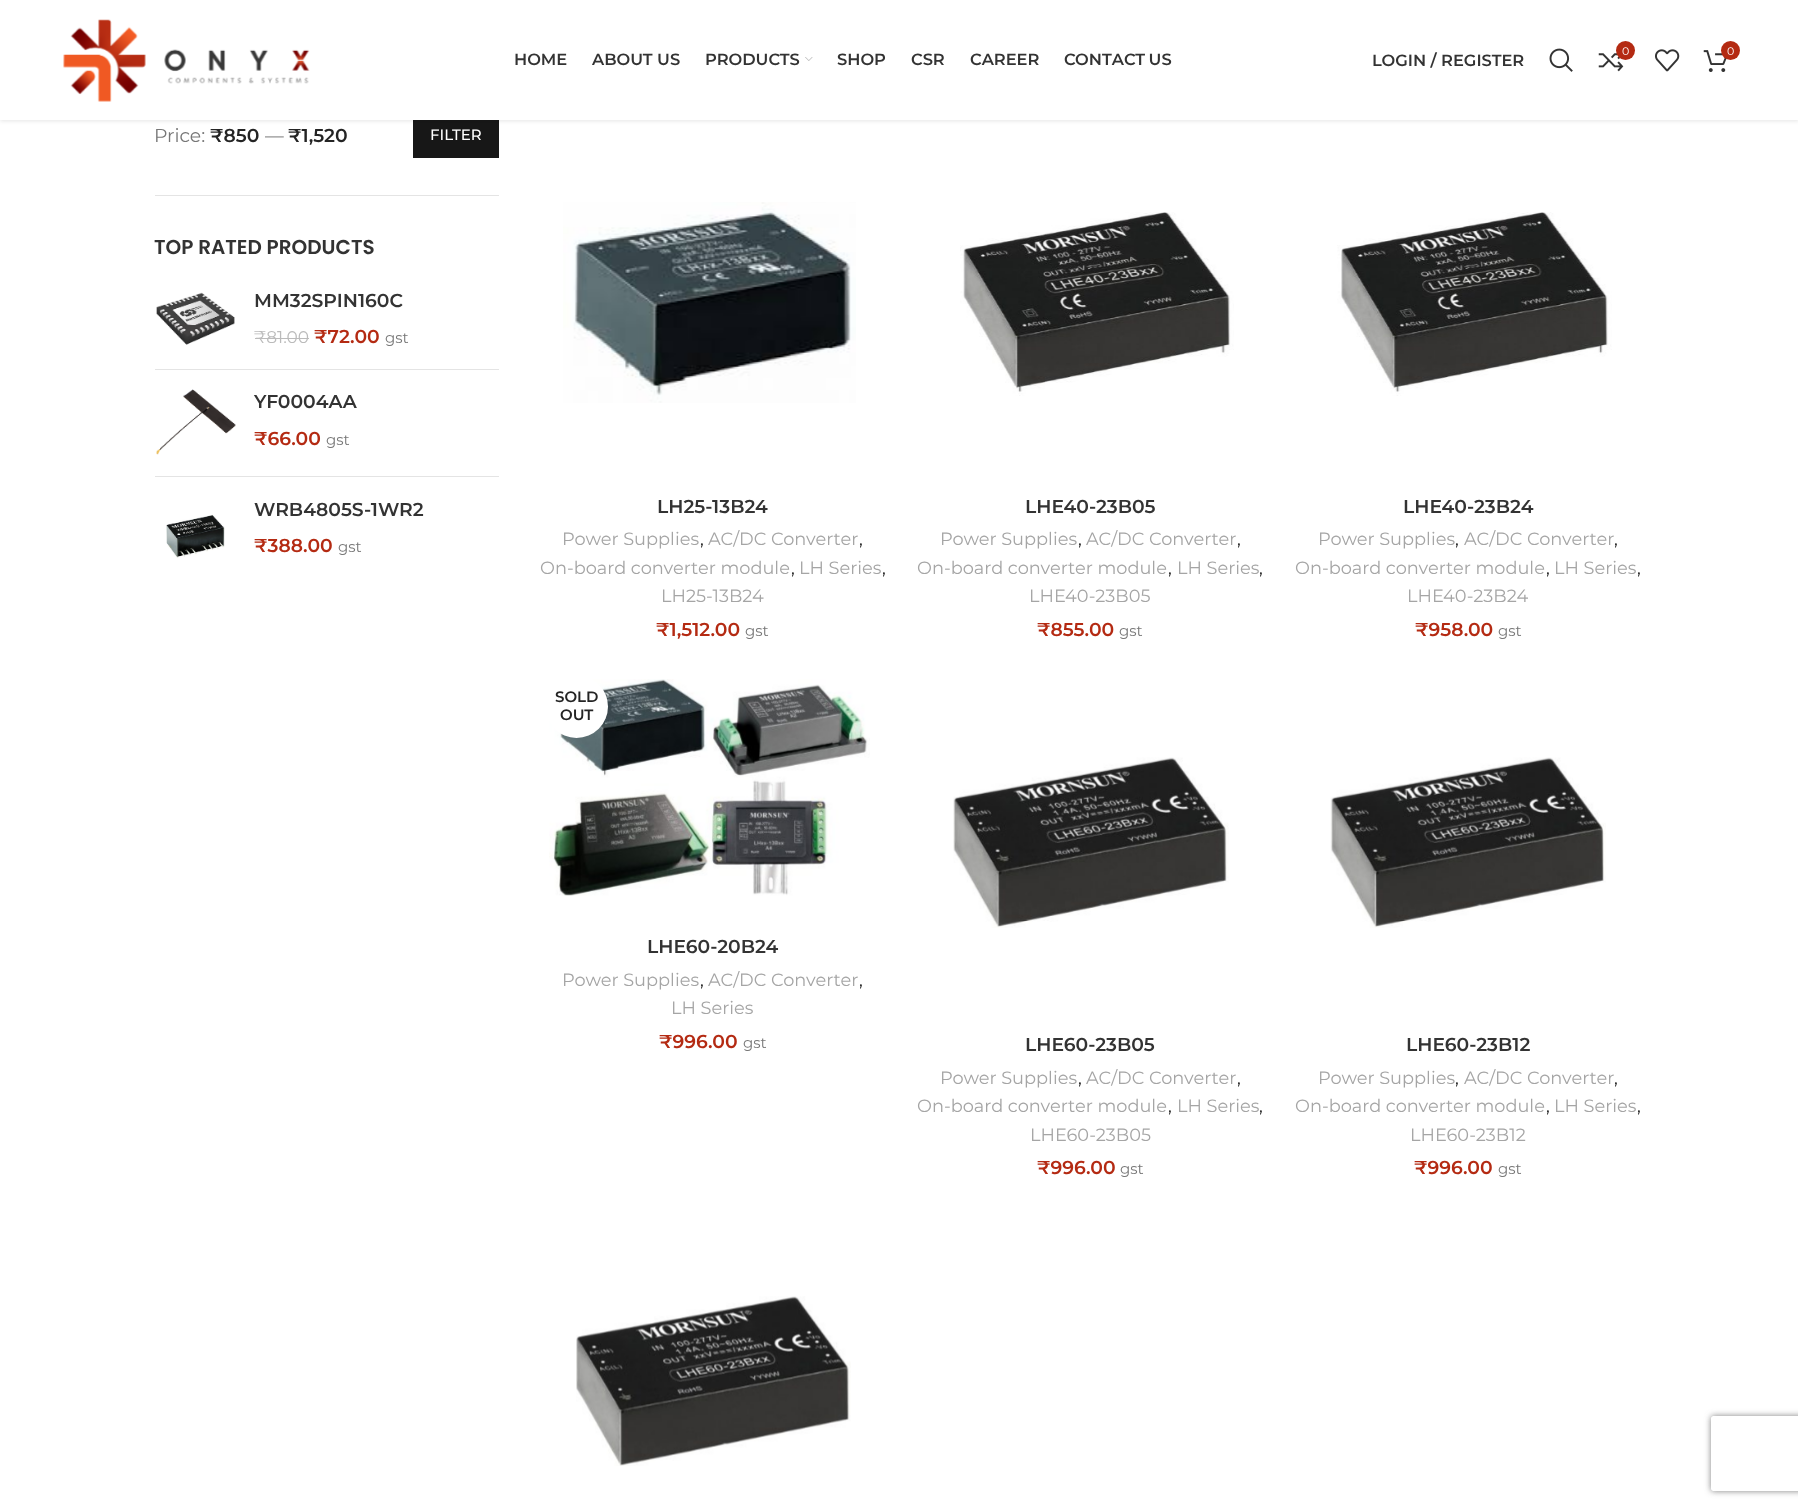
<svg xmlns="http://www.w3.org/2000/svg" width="1798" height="1508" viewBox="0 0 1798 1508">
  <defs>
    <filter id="blur1" x="-50%" y="-200%" width="200%" height="500%"><feGaussianBlur stdDeviation="2"/></filter>
    <clipPath id="clip1"><path d="M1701 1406H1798V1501H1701ZM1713.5 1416H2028.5C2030 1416 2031 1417 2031 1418.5V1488.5C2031 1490 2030 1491 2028.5 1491H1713.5C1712 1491 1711 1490 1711 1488.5V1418.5C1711 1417 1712 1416 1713.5 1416Z" clip-rule="evenodd"/></clipPath>
    <filter id="blur2" x="-50%" y="-200%" width="200%" height="500%"><feGaussianBlur stdDeviation="3"/></filter>
  </defs>
  <rect width="100%" height="100%" fill="#ffffff"/>
  <rect x="413" y="120" width="86" height="38" fill="#171717"/>
  <rect x="0" y="1" width="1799" height="120" fill="#000000" fill-opacity="0.1" filter="url(#blur1)"/>
  <rect x="0" y="0" width="1798" height="120" fill="#ffffff"/>
  <image x="63" y="19" width="247" height="83" href="img1.png"/>
  <text x="514" y="65" font-family="Montserrat" font-size="16.25" font-weight="600" fill="#333333">HOME</text>
  <text x="592" y="65" font-family="Montserrat" font-size="16.25" font-weight="600" fill="#333333">ABOUT US</text>
  <text x="705" y="65" font-family="Montserrat" font-size="16.25" font-weight="600" fill="#333333">PRODUCTS</text>
  <image x="805" y="57" width="8" height="4" href="img2.png"/>
  <text x="837" y="65" font-family="Montserrat" font-size="16.25" font-weight="600" fill="#333333">SHOP</text>
  <text x="911" y="65" font-family="Montserrat" font-size="16.25" font-weight="600" fill="#333333">CSR</text>
  <text x="970" y="65" font-family="Montserrat" font-size="16.25" font-weight="600" fill="#333333">CAREER</text>
  <text x="1064" y="65" word-spacing="-1" font-family="Montserrat" font-size="16.25" font-weight="600" fill="#333333">CONTACT US</text>
  <text x="1372" y="66" font-family="Montserrat" font-size="16.25" font-weight="600" fill="#333333">LOGIN / REGISTER</text>
  <image x="1549" y="48" width="24" height="24" href="img3.png"/>
  <image x="1598" y="53" width="26" height="19" href="img4.png"/>
  <circle cx="1625.5" cy="50.5" r="9.5" fill="#b42a12"/>
  <text x="1622" y="55" font-family="Montserrat" font-size="11" fill="#ffffff">0</text>
  <image x="1655" y="49" width="25" height="23" href="img5.png"/>
  <image x="1703" y="50" width="24" height="22" href="img6.png"/>
  <circle cx="1730.5" cy="50.5" r="9.5" fill="#b42a12"/>
  <text x="1727" y="55" font-family="Montserrat" font-size="11" fill="#ffffff">0</text>
  <rect x="155" y="195" width="344" height="1" fill="#e4e4e4"/>
  <text x="154" y="142" font-family="Montserrat" font-size="18.75" fill="#777777">Price:</text>
  <text x="210" y="142" font-family="Montserrat" font-size="18.75" font-weight="600" fill="#242424">₹850</text>
  <text x="265" y="142" font-family="Montserrat" font-size="18.75" fill="#777777">—</text>
  <text x="288" y="142" font-family="Montserrat" font-size="18.75" font-weight="600" fill="#242424">₹1,520</text>
  <text x="430" y="140" font-family="Montserrat" font-size="15" font-weight="500" fill="#ffffff">FILTER</text>
  <text x="154" y="254" font-family="Poppins" font-size="20" font-weight="600" fill="#333333">TOP RATED PRODUCTS</text>
  <rect x="155" y="369" width="344" height="1" fill="#e4e4e4"/>
  <image x="156" y="292" width="79" height="53" href="img7.png"/>
  <text x="254" y="307" font-family="Montserrat" font-size="18.75" font-weight="600" fill="#333333">MM32SPIN160C</text>
  <text x="254" y="343" font-family="Montserrat" font-size="17" fill="#bbbbbb">₹81.00</text>
  <rect x="255" y="338" width="54" height="1" fill="#bbbbbb"/>
  <text x="314" y="343" font-family="Montserrat" font-size="18.75" font-weight="600" fill="#b42a12">₹72.00</text>
  <text x="385" y="343" font-family="Montserrat" font-size="15" fill="#777777">gst</text>
  <rect x="155" y="476" width="344" height="1" fill="#e4e4e4"/>
  <image x="156" y="389" width="80" height="66" href="img8.png"/>
  <text x="254" y="408" font-family="Montserrat" font-size="18.75" font-weight="600" fill="#333333">YF0004AA</text>
  <text x="254" y="445" font-family="Montserrat" font-size="18.75" font-weight="600" fill="#b42a12">₹66.00</text>
  <text x="326" y="445" font-family="Montserrat" font-size="15" fill="#777777">gst</text>
  <image x="166" y="514" width="59" height="44" href="img9.png"/>
  <text x="254" y="516" font-family="Montserrat" font-size="18.75" font-weight="600" fill="#333333">WRB4805S-1WR2</text>
  <text x="254" y="552" font-family="Montserrat" font-size="18.75" font-weight="600" fill="#b42a12">₹388.00</text>
  <text x="338" y="552" font-family="Montserrat" font-size="15" fill="#777777">gst</text>
  <image x="563" y="202" width="293" height="201" href="img10.png"/>
  <text x="657" y="513" font-family="Montserrat" font-size="18.75" font-weight="600" fill="#333333">LH25-13B24</text>
  <text x="562" y="545" font-family="Montserrat" font-size="17.75" fill="#a5a5a5">Power Supplies</text>
  <text x="700" y="545" font-family="Montserrat" font-size="17.75" fill="#0f0f0f">,</text>
  <text x="708" y="545" font-family="Montserrat" font-size="17.75" fill="#a5a5a5">AC/DC Converter</text>
  <text x="859" y="545" font-family="Montserrat" font-size="17.75" fill="#0f0f0f">,</text>
  <text x="540" y="574" font-family="Montserrat" font-size="17.75" fill="#a5a5a5">On-board converter module</text>
  <text x="791" y="574" font-family="Montserrat" font-size="17.75" fill="#0f0f0f">,</text>
  <text x="799" y="574" font-family="Montserrat" font-size="17.75" fill="#a5a5a5">LH Series</text>
  <text x="882" y="574" font-family="Montserrat" font-size="17.75" fill="#0f0f0f">,</text>
  <text x="661" y="602" font-family="Montserrat" font-size="17.75" fill="#a5a5a5">LH25-13B24</text>
  <text x="656" y="636" font-family="Montserrat" font-size="18.75" font-weight="600" fill="#b42a12">₹1,512.00</text>
  <text x="745" y="636" font-family="Montserrat" font-size="15" fill="#777777">gst</text>
  <image x="960" y="212" width="274" height="184" href="img11.png"/>
  <text x="1025" y="513" font-family="Montserrat" font-size="18.75" font-weight="600" fill="#333333">LHE40-23B05</text>
  <text x="940" y="545" font-family="Montserrat" font-size="17.75" fill="#a5a5a5">Power Supplies</text>
  <text x="1078" y="545" font-family="Montserrat" font-size="17.75" fill="#0f0f0f">,</text>
  <text x="1086" y="545" font-family="Montserrat" font-size="17.75" fill="#a5a5a5">AC/DC Converter</text>
  <text x="1237" y="545" font-family="Montserrat" font-size="17.75" fill="#0f0f0f">,</text>
  <text x="917" y="574" font-family="Montserrat" font-size="17.75" fill="#a5a5a5">On-board converter module</text>
  <text x="1168" y="574" font-family="Montserrat" font-size="17.75" fill="#0f0f0f">,</text>
  <text x="1177" y="574" font-family="Montserrat" font-size="17.75" fill="#a5a5a5">LH Series</text>
  <text x="1259" y="574" font-family="Montserrat" font-size="17.75" fill="#0f0f0f">,</text>
  <text x="1029" y="602" font-family="Montserrat" font-size="17.75" fill="#a5a5a5">LHE40-23B05</text>
  <text x="1037" y="636" font-family="Montserrat" font-size="18.75" font-weight="600" fill="#b42a12">₹855.00</text>
  <text x="1119" y="636" font-family="Montserrat" font-size="15" fill="#777777">gst</text>
  <image x="1337" y="212" width="275" height="184" href="img12.png"/>
  <text x="1403" y="513" font-family="Montserrat" font-size="18.75" font-weight="600" fill="#333333">LHE40-23B24</text>
  <text x="1318" y="545" font-family="Montserrat" font-size="17.75" fill="#a5a5a5">Power Supplies</text>
  <text x="1455" y="545" font-family="Montserrat" font-size="17.75" fill="#0f0f0f">,</text>
  <text x="1464" y="545" font-family="Montserrat" font-size="17.75" fill="#a5a5a5">AC/DC Converter</text>
  <text x="1614" y="545" font-family="Montserrat" font-size="17.75" fill="#0f0f0f">,</text>
  <text x="1295" y="574" font-family="Montserrat" font-size="17.75" fill="#a5a5a5">On-board converter module</text>
  <text x="1546" y="574" font-family="Montserrat" font-size="17.75" fill="#0f0f0f">,</text>
  <text x="1554" y="574" font-family="Montserrat" font-size="17.75" fill="#a5a5a5">LH Series</text>
  <text x="1637" y="574" font-family="Montserrat" font-size="17.75" fill="#0f0f0f">,</text>
  <text x="1407" y="602" font-family="Montserrat" font-size="17.75" fill="#a5a5a5">LHE40-23B24</text>
  <text x="1415" y="636" font-family="Montserrat" font-size="18.75" font-weight="600" fill="#b42a12">₹958.00</text>
  <text x="1498" y="636" font-family="Montserrat" font-size="15" fill="#777777">gst</text>
  <image x="549" y="679" width="321" height="217" href="img13.png"/>
  <circle cx="576.5" cy="706.5" r="31.5" fill="#ffffff"/>
  <text x="555" y="702" font-family="Montserrat" font-size="15" font-weight="600" fill="#242424">SOLD</text>
  <text x="560" y="720" font-family="Montserrat" font-size="15" font-weight="600" fill="#242424">OUT</text>
  <text x="647" y="953" font-family="Montserrat" font-size="18.75" font-weight="600" fill="#333333">LHE60-20B24</text>
  <text x="562" y="986" font-family="Montserrat" font-size="17.75" fill="#a5a5a5">Power Supplies</text>
  <text x="700" y="986" font-family="Montserrat" font-size="17.75" fill="#0f0f0f">,</text>
  <text x="708" y="986" font-family="Montserrat" font-size="17.75" fill="#a5a5a5">AC/DC Converter</text>
  <text x="859" y="986" font-family="Montserrat" font-size="17.75" fill="#0f0f0f">,</text>
  <text x="671" y="1014" font-family="Montserrat" font-size="17.75" fill="#a5a5a5">LH Series</text>
  <text x="659" y="1048" font-family="Montserrat" font-size="18.75" font-weight="600" fill="#b42a12">₹996.00</text>
  <text x="743" y="1048" font-family="Montserrat" font-size="15" fill="#777777">gst</text>
  <image x="953" y="757" width="276" height="171" href="img14.png"/>
  <text x="1025" y="1051" font-family="Montserrat" font-size="18.75" font-weight="600" fill="#333333">LHE60-23B05</text>
  <text x="940" y="1084" font-family="Montserrat" font-size="17.75" fill="#a5a5a5">Power Supplies</text>
  <text x="1078" y="1084" font-family="Montserrat" font-size="17.75" fill="#0f0f0f">,</text>
  <text x="1086" y="1084" font-family="Montserrat" font-size="17.75" fill="#a5a5a5">AC/DC Converter</text>
  <text x="1237" y="1084" font-family="Montserrat" font-size="17.75" fill="#0f0f0f">,</text>
  <text x="917" y="1112" font-family="Montserrat" font-size="17.75" fill="#a5a5a5">On-board converter module</text>
  <text x="1168" y="1112" font-family="Montserrat" font-size="17.75" fill="#0f0f0f">,</text>
  <text x="1177" y="1112" font-family="Montserrat" font-size="17.75" fill="#a5a5a5">LH Series</text>
  <text x="1259" y="1112" font-family="Montserrat" font-size="17.75" fill="#0f0f0f">,</text>
  <text x="1030" y="1141" font-family="Montserrat" font-size="17.75" fill="#a5a5a5">LHE60-23B05</text>
  <text x="1037" y="1174" font-family="Montserrat" font-size="18.75" font-weight="600" fill="#b42a12">₹996.00</text>
  <text x="1120" y="1174" font-family="Montserrat" font-size="15" fill="#777777">gst</text>
  <image x="1330" y="757" width="276" height="171" href="img15.png"/>
  <text x="1406" y="1051" font-family="Montserrat" font-size="18.75" font-weight="600" fill="#333333">LHE60-23B12</text>
  <text x="1318" y="1084" font-family="Montserrat" font-size="17.75" fill="#a5a5a5">Power Supplies</text>
  <text x="1455" y="1084" font-family="Montserrat" font-size="17.75" fill="#0f0f0f">,</text>
  <text x="1464" y="1084" font-family="Montserrat" font-size="17.75" fill="#a5a5a5">AC/DC Converter</text>
  <text x="1614" y="1084" font-family="Montserrat" font-size="17.75" fill="#0f0f0f">,</text>
  <text x="1295" y="1112" font-family="Montserrat" font-size="17.75" fill="#a5a5a5">On-board converter module</text>
  <text x="1546" y="1112" font-family="Montserrat" font-size="17.75" fill="#0f0f0f">,</text>
  <text x="1554" y="1112" font-family="Montserrat" font-size="17.75" fill="#a5a5a5">LH Series</text>
  <text x="1637" y="1112" font-family="Montserrat" font-size="17.75" fill="#0f0f0f">,</text>
  <text x="1410" y="1141" font-family="Montserrat" font-size="17.75" fill="#a5a5a5">LHE60-23B12</text>
  <text x="1414" y="1174" font-family="Montserrat" font-size="18.75" font-weight="600" fill="#b42a12">₹996.00</text>
  <text x="1498" y="1174" font-family="Montserrat" font-size="15" fill="#777777">gst</text>
  <image x="576" y="1296" width="275" height="170" href="img16.png"/>
  <g clip-path="url(#clip1)">
    <rect x="1711" y="1416" width="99" height="75" rx="2.5" fill="#808080" filter="url(#blur2)"/>
  </g>
</svg>
